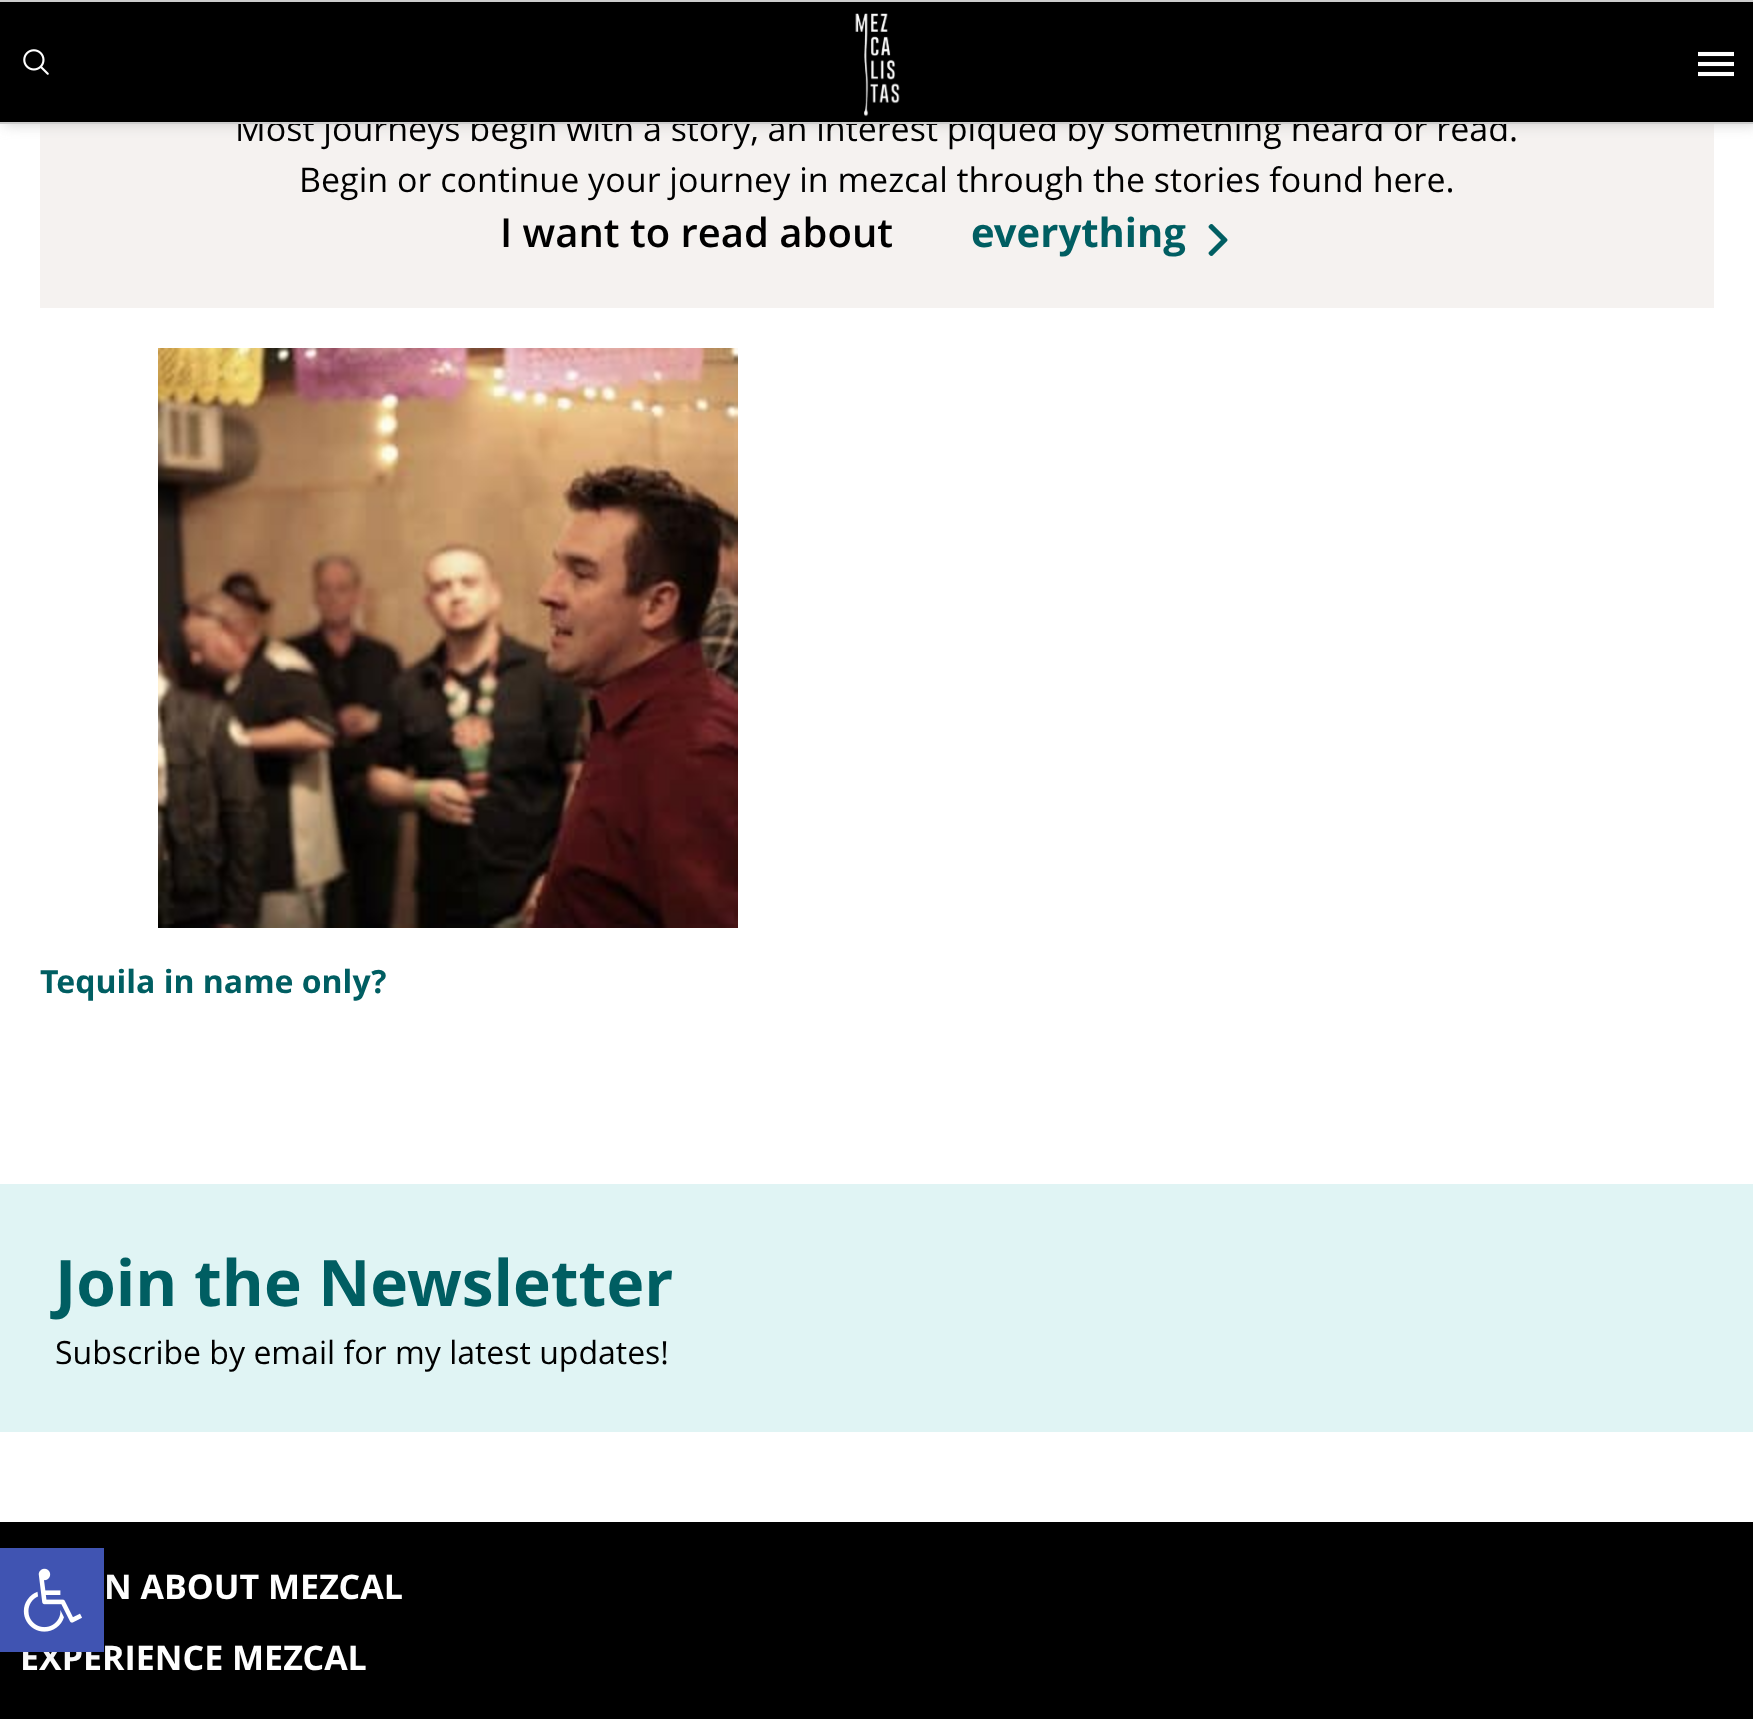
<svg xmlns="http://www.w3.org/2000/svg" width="1753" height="1719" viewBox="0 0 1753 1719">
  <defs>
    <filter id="blur1" x="-50%" y="-200%" width="200%" height="500%"><feGaussianBlur stdDeviation="7"/></filter>
    <filter id="blur2" x="-50%" y="-200%" width="200%" height="500%"><feGaussianBlur stdDeviation="10"/></filter>
  </defs>
  <rect width="100%" height="100%" fill="#ffffff"/>
  <rect x="40" y="124" width="1674" height="184" fill="#f5f2f0"/>
  <rect x="4" y="0" width="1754" height="124" fill="#cccccc" filter="url(#blur1)"/>
  <rect x="0" y="2" width="1753" height="120" fill="#000000"/>
  <rect x="0" y="0" width="1753" height="2" fill="#cccccc"/>
  <text x="235" y="141" font-family="Open Sans" font-size="34" fill="#000000">Most journeys begin with a story, an interest piqued by something heard or read.</text>
  <rect x="0" y="122" width="1753" height="2" fill="#cccccc"/>
  <image x="23" y="49" width="26" height="26" href="img1.png"/>
  <image x="855" y="13" width="45" height="104" href="img2.png"/>
  <image x="1698" y="51" width="36" height="26" href="img3.png"/>
  <text x="299" y="192" font-family="Open Sans" font-size="34" fill="#000000">Begin or continue your journey in mezcal through the stories found here.</text>
  <text x="500" y="247" font-family="Open Sans" font-size="40" font-weight="600" fill="#000000">I want to read about</text>
  <text x="971" y="247" font-family="Open Sans" font-size="40" font-weight="bold" fill="#005e62">everything</text>
  <image x="1208" y="224" width="20" height="32" href="img4.png"/>
  <image x="158" y="348" width="580" height="580" href="img5.png"/>
  <text x="40" y="993" font-family="Open Sans" font-size="32" font-weight="bold" fill="#005e62">Tequila in name only?</text>
  <rect x="0" y="1184" width="1753" height="248" fill="#e0f4f4"/>
  <text x="55" y="1306" font-family="Open Sans" font-size="64" font-weight="bold" fill="#005e62">Join the Newsletter</text>
  <text x="55" y="1364" font-family="Open Sans" font-size="32" fill="#000000">Subscribe by email for my latest updates!</text>
  <rect x="0" y="1522" width="1753" height="197" fill="#000000"/>
  <text x="104" y="1599" font-family="Open Sans" font-size="34" font-weight="bold" fill="#ffffff">N ABOUT MEZCAL</text>
  <text x="20" y="1670" font-family="Open Sans" font-size="34" font-weight="bold" fill="#ffffff">EXPERIENCE MEZCAL</text>
  <rect x="0" y="1548" width="104" height="104" fill="#000000" fill-opacity="0.1" filter="url(#blur2)"/>
  <rect x="0" y="1548" width="104" height="104" fill="#4054b2"/>
  <image x="23" y="1568" width="59" height="64" href="img6.png"/>
</svg>
